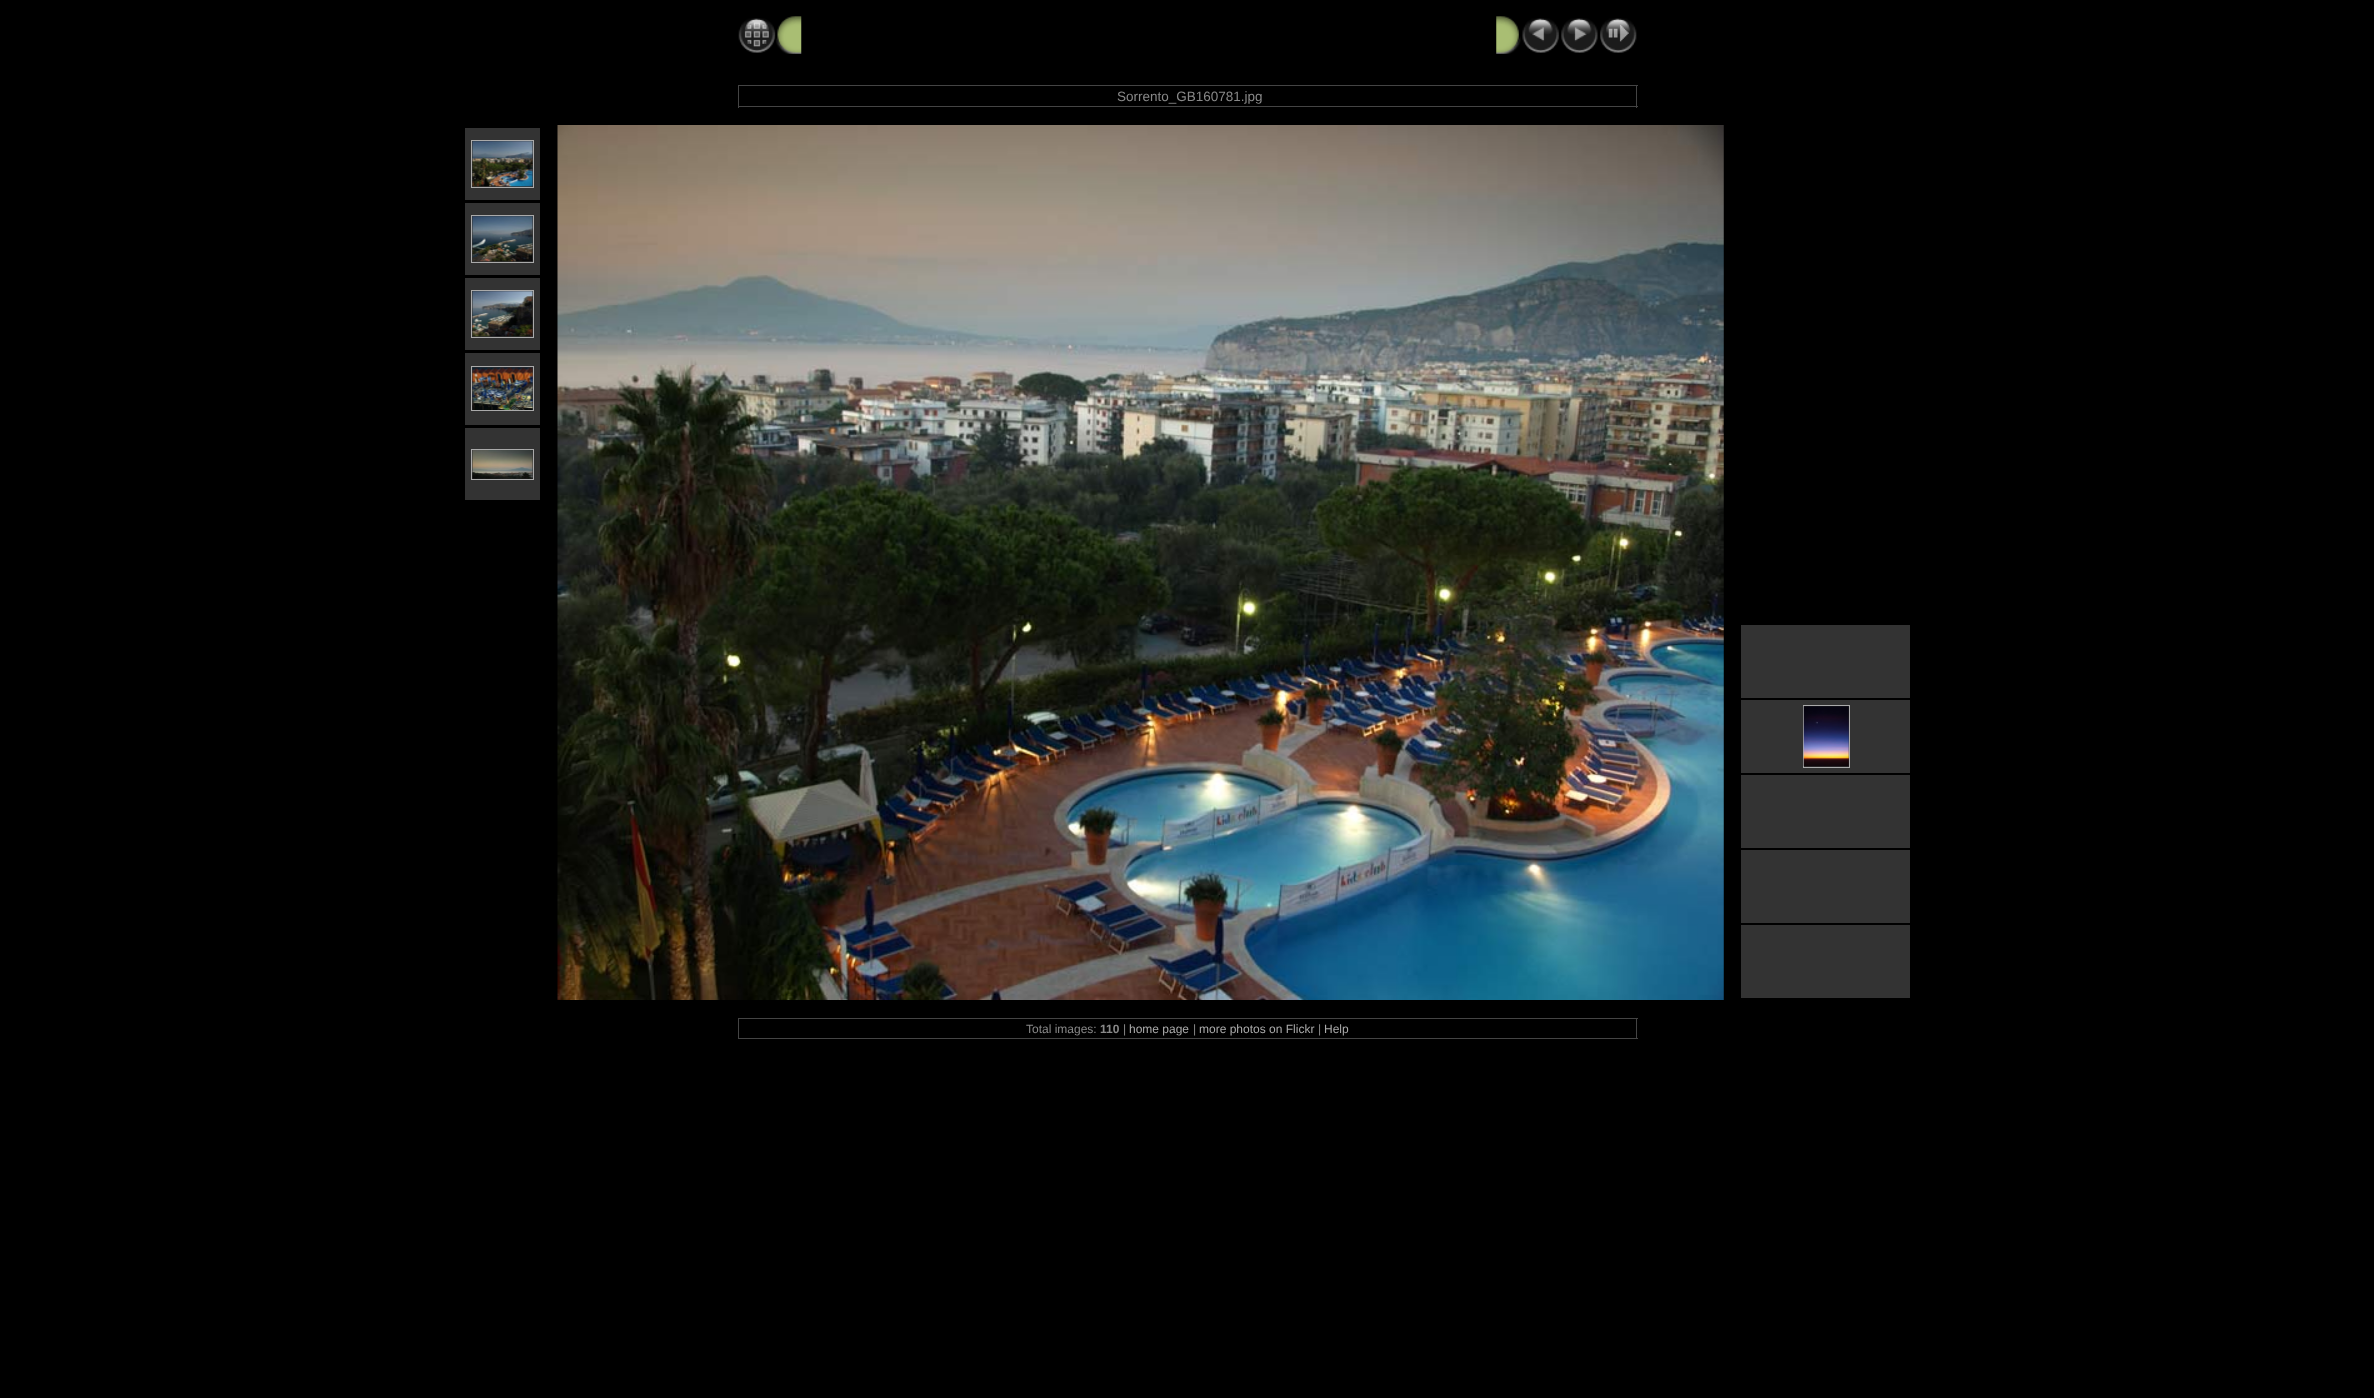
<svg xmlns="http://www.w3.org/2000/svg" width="2374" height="1398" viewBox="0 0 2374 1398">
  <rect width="100%" height="100%" fill="#000000"/>
  <image x="738" y="18" width="38" height="35" href="img1.png"/>
  <image x="776" y="16" width="26" height="38" href="img2.png"/>
  <image x="1496" y="16" width="25" height="38" href="img3.png"/>
  <image x="1522" y="18" width="37" height="35" href="img4.png"/>
  <image x="1561" y="18" width="37" height="35" href="img5.png"/>
  <image x="1600" y="18" width="37" height="35" href="img6.png"/>
  <rect x="738" y="85" width="900" height="1" fill="#444444"/>
  <rect x="1636" y="85" width="1" height="23" fill="#444444"/>
  <rect x="738" y="106" width="900" height="1" fill="#444444"/>
  <rect x="738" y="85" width="1" height="23" fill="#444444"/>
  <text x="1117" y="101" font-family="Liberation Sans" font-size="13.5" fill="#888888">Sorrento_GB160781.jpg</text>
  <rect x="465" y="128" width="75" height="72" fill="#333333"/>
  <rect x="471.5" y="140.5" width="62" height="47" fill="none" stroke="#aaaaaa"/>
  <image x="472" y="141" width="61" height="46" href="img7.png"/>
  <rect x="465" y="203" width="75" height="72" fill="#333333"/>
  <rect x="471.5" y="215.5" width="62" height="47" fill="none" stroke="#aaaaaa"/>
  <image x="472" y="216" width="61" height="46" href="img8.png"/>
  <rect x="465" y="278" width="75" height="72" fill="#333333"/>
  <rect x="471.5" y="290.5" width="62" height="47" fill="none" stroke="#aaaaaa"/>
  <image x="472" y="291" width="61" height="46" href="img9.png"/>
  <rect x="465" y="353" width="75" height="72" fill="#333333"/>
  <rect x="471.5" y="366.5" width="62" height="44" fill="none" stroke="#aaaaaa"/>
  <image x="472" y="367" width="61" height="43" href="img10.png"/>
  <rect x="465" y="428" width="75" height="72" fill="#333333"/>
  <rect x="471.5" y="449.5" width="62" height="30" fill="none" stroke="#aaaaaa"/>
  <image x="472" y="450" width="61" height="29" href="img11.png"/>
  <image x="557" y="125" width="1167" height="875" href="img12.png"/>
  <rect x="1741" y="625" width="169" height="73" fill="#333333"/>
  <rect x="1741" y="700" width="169" height="73" fill="#333333"/>
  <rect x="1803.5" y="705.5" width="46" height="62" fill="none" stroke="#aaaaaa"/>
  <image x="1803" y="706" width="46" height="61" href="img13.png"/>
  <rect x="1741" y="775" width="169" height="73" fill="#333333"/>
  <rect x="1741" y="850" width="169" height="73" fill="#333333"/>
  <rect x="1741" y="925" width="169" height="73" fill="#333333"/>
  <rect x="738" y="1018" width="900" height="1" fill="#444444"/>
  <rect x="1636" y="1018" width="1" height="21" fill="#444444"/>
  <rect x="738" y="1038" width="900" height="1" fill="#444444"/>
  <rect x="738" y="1018" width="1" height="21" fill="#444444"/>
  <text x="1026" y="1033" font-family="Liberation Sans" font-size="12" fill="#888888">Total images:</text>
  <text x="1100" y="1033" font-family="Liberation Sans" font-size="12" font-weight="bold" fill="#888888">110</text>
  <text x="1123" y="1033" font-family="Liberation Sans" font-size="12" fill="#888888">|</text>
  <text x="1129" y="1033" font-family="Liberation Sans" font-size="12" fill="#aaaaaa">home page</text>
  <text x="1193" y="1033" font-family="Liberation Sans" font-size="12" fill="#888888">|</text>
  <text x="1199" y="1033" font-family="Liberation Sans" font-size="12" fill="#aaaaaa">more photos on Flickr</text>
  <text x="1318" y="1033" font-family="Liberation Sans" font-size="12" fill="#888888">|</text>
  <text x="1324" y="1033" font-family="Liberation Sans" font-size="12" fill="#aaaaaa">Help</text>
</svg>
